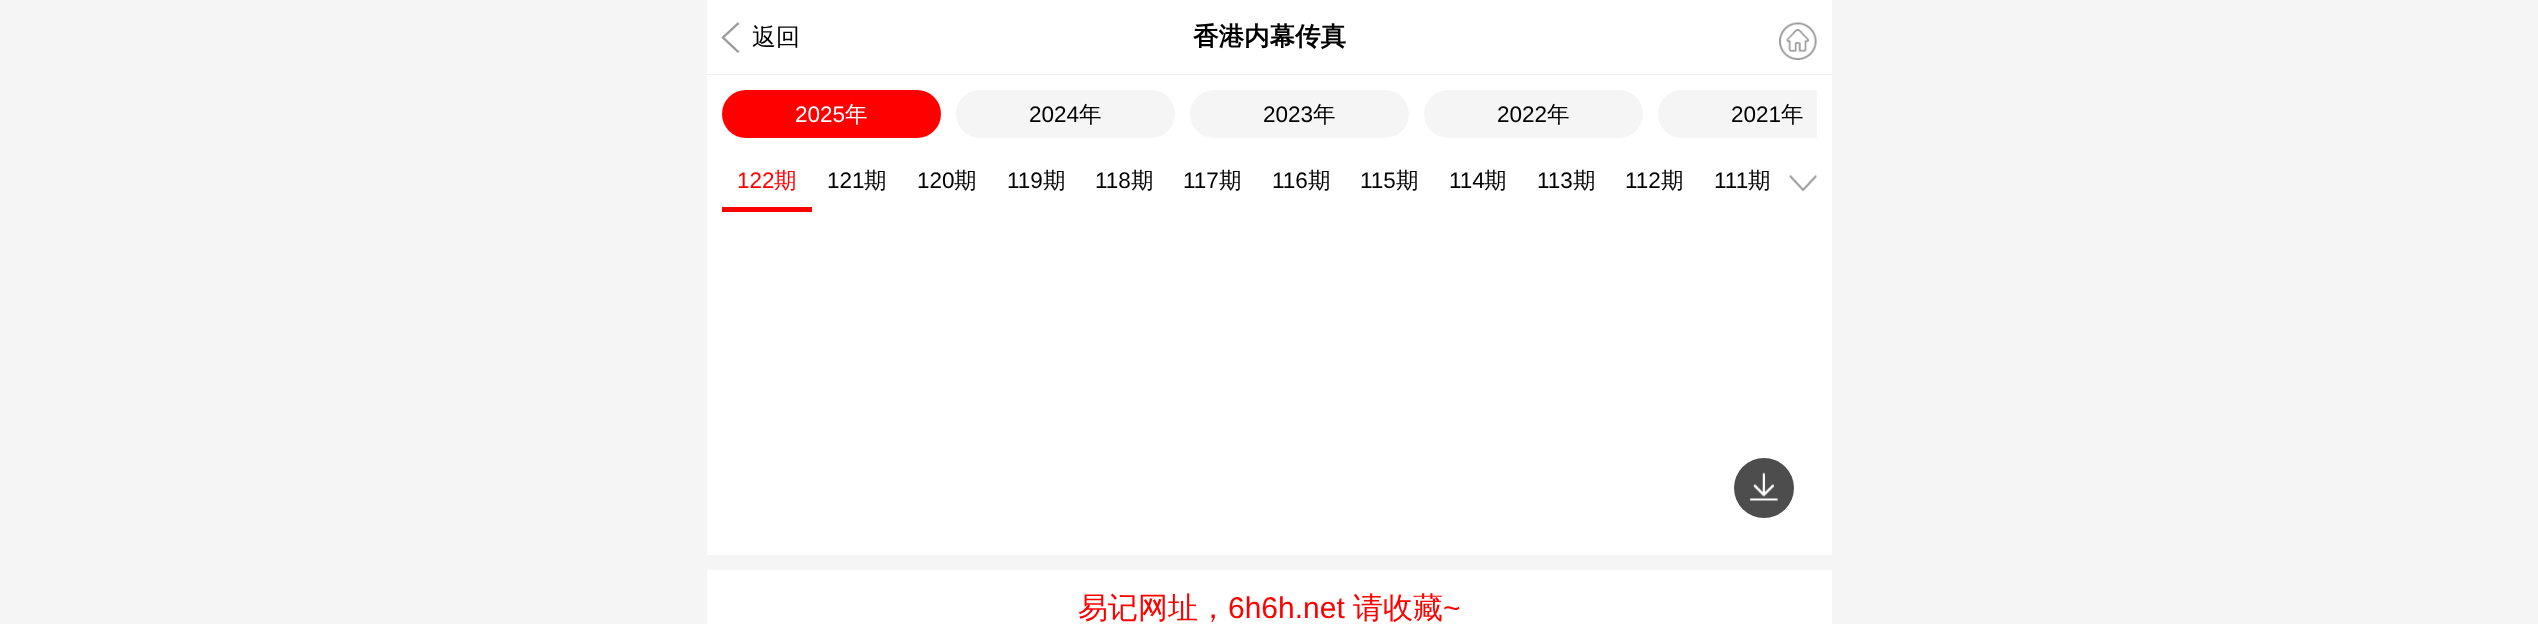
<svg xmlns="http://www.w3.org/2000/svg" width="2538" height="624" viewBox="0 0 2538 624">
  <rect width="100%" height="100%" fill="#f5f5f5"/>
  <rect x="707" y="0" width="1125" height="624" fill="#ffffff"/>
  <rect x="707" y="74" width="1125" height="1" fill="#eeeeee"/>
  <image x="721" y="22" width="19" height="31" href="img1.png"/>
  <text x="752" y="45" font-family="WenQuanYi Zen Hei" font-size="24" font-weight="500" fill="#000000">返回</text>
  <text x="1193" y="45" font-family="WenQuanYi Zen Hei" font-size="25.5" font-weight="bold" fill="#000000">香港内幕传真</text>
  <image x="1779" y="22" width="38" height="38" href="img2.png"/>
  <rect x="722" y="90" width="219" height="48" rx="24" fill="#ff0000"/>
  <text x="795" y="122" font-family="Liberation Sans" font-size="22.5" fill="#ffffff">2025</text>
  <text x="845" y="122" font-family="WenQuanYi Zen Hei" font-size="22.5" font-weight="500" fill="#ffffff">年</text>
  <rect x="956" y="90" width="219" height="48" rx="24" fill="#f5f5f5"/>
  <text x="1029" y="122" font-family="Liberation Sans" font-size="22.5" fill="#000000">2024</text>
  <text x="1079" y="122" font-family="WenQuanYi Zen Hei" font-size="22.5" font-weight="500" fill="#000000">年</text>
  <rect x="1190" y="90" width="219" height="48" rx="24" fill="#f5f5f5"/>
  <text x="1263" y="122" font-family="Liberation Sans" font-size="22.5" fill="#000000">2023</text>
  <text x="1313" y="122" font-family="WenQuanYi Zen Hei" font-size="22.5" font-weight="500" fill="#000000">年</text>
  <rect x="1424" y="90" width="219" height="48" rx="24" fill="#f5f5f5"/>
  <text x="1497" y="122" font-family="Liberation Sans" font-size="22.5" fill="#000000">2022</text>
  <text x="1547" y="122" font-family="WenQuanYi Zen Hei" font-size="22.5" font-weight="500" fill="#000000">年</text>
  <path d="M1682 90H1817V138H1682C1668.5 138 1658 127.5 1658 114C1658 100.5 1668.5 90 1682 90Z" fill="#f5f5f5"/>
  <text x="1731" y="122" font-family="Liberation Sans" font-size="22.5" fill="#000000">2021</text>
  <text x="1781" y="122" font-family="WenQuanYi Zen Hei" font-size="22.5" font-weight="500" fill="#000000">年</text>
  <rect x="722" y="207" width="90" height="5" fill="#ff0000"/>
  <text x="737" y="188" font-family="Liberation Sans" font-size="22.5" fill="#ff0000">122</text>
  <text x="774" y="188" font-family="WenQuanYi Zen Hei" font-size="22.5" font-weight="500" fill="#ff0000">期</text>
  <text x="827" y="188" font-family="Liberation Sans" font-size="22.5" fill="#000000">121</text>
  <text x="864" y="188" font-family="WenQuanYi Zen Hei" font-size="22.5" font-weight="500" fill="#000000">期</text>
  <text x="917" y="188" font-family="Liberation Sans" font-size="22.5" fill="#000000">120</text>
  <text x="954" y="188" font-family="WenQuanYi Zen Hei" font-size="22.5" font-weight="500" fill="#000000">期</text>
  <text x="1007" y="188" font-family="Liberation Sans" font-size="22.5" fill="#000000">119</text>
  <text x="1043" y="188" font-family="WenQuanYi Zen Hei" font-size="22.5" font-weight="500" fill="#000000">期</text>
  <text x="1095" y="188" font-family="Liberation Sans" font-size="22.5" fill="#000000">118</text>
  <text x="1131" y="188" font-family="WenQuanYi Zen Hei" font-size="22.5" font-weight="500" fill="#000000">期</text>
  <text x="1183" y="188" font-family="Liberation Sans" font-size="22.5" fill="#000000">117</text>
  <text x="1219" y="188" font-family="WenQuanYi Zen Hei" font-size="22.5" font-weight="500" fill="#000000">期</text>
  <text x="1272" y="188" font-family="Liberation Sans" font-size="22.5" fill="#000000">116</text>
  <text x="1308" y="188" font-family="WenQuanYi Zen Hei" font-size="22.5" font-weight="500" fill="#000000">期</text>
  <text x="1360" y="188" font-family="Liberation Sans" font-size="22.5" fill="#000000">115</text>
  <text x="1396" y="188" font-family="WenQuanYi Zen Hei" font-size="22.5" font-weight="500" fill="#000000">期</text>
  <text x="1449" y="188" font-family="Liberation Sans" font-size="22.5" fill="#000000">114</text>
  <text x="1484" y="188" font-family="WenQuanYi Zen Hei" font-size="22.5" font-weight="500" fill="#000000">期</text>
  <text x="1537" y="188" font-family="Liberation Sans" font-size="22.5" fill="#000000">113</text>
  <text x="1573" y="188" font-family="WenQuanYi Zen Hei" font-size="22.5" font-weight="500" fill="#000000">期</text>
  <text x="1625" y="188" font-family="Liberation Sans" font-size="22.5" fill="#000000">112</text>
  <text x="1661" y="188" font-family="WenQuanYi Zen Hei" font-size="22.5" font-weight="500" fill="#000000">期</text>
  <text x="1714" y="188" font-family="Liberation Sans" font-size="22.5" fill="#000000">111</text>
  <text x="1748" y="188" font-family="WenQuanYi Zen Hei" font-size="22.5" font-weight="500" fill="#000000">期</text>
  <image x="1789" y="174" width="28" height="18" href="img3.png"/>
  <circle cx="1764" cy="488" r="30" fill="#4d4d4d"/>
  <image x="1749" y="472" width="29" height="29" href="img4.png"/>
  <rect x="707" y="555" width="1125" height="15" fill="#f5f5f5"/>
  <text x="1078" y="618" font-family="WenQuanYi Zen Hei" font-size="30" font-weight="500" fill="#ff0000">易记网址，</text>
  <text x="1228" y="618" font-family="Liberation Sans" font-size="30" fill="#ff0000">6h6h.net</text>
  <text x="1353" y="618" font-family="WenQuanYi Zen Hei" font-size="30" font-weight="500" fill="#ff0000">请收藏</text>
  <text x="1443" y="618" font-family="Liberation Sans" font-size="30" fill="#ff0000">~</text>
</svg>
